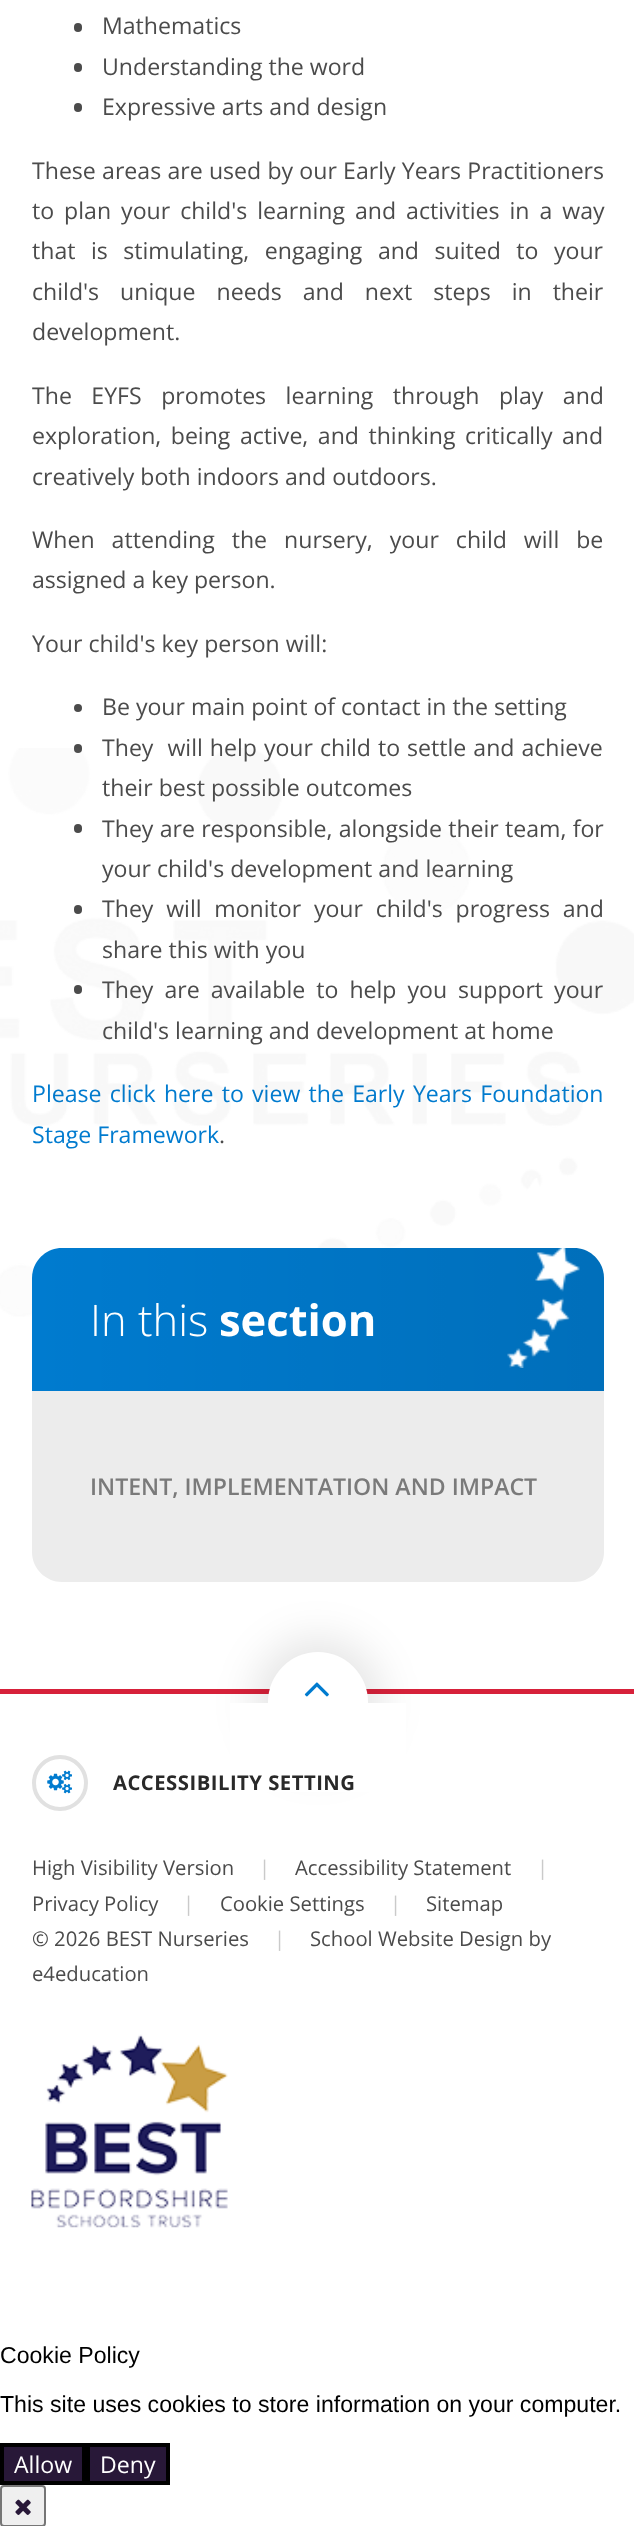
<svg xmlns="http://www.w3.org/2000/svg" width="634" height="2526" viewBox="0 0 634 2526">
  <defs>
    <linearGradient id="g1" gradientUnits="userSpaceOnUse" x1="32" y1="1320" x2="604" y2="1320"><stop offset="0" stop-color="#000000" stop-opacity="0"/><stop offset="1" stop-color="#000000" stop-opacity="0.1"/></linearGradient>
    <filter id="blur1" x="-50%" y="-200%" width="200%" height="500%"><feGaussianBlur stdDeviation="21"/></filter>
  </defs>
  <rect width="100%" height="100%" fill="#ffffff"/>
  <rect x="74" y="23" width="8" height="9" rx="4" fill="#4b4b4b"/>
  <text x="102" y="34" font-family="Open Sans" font-size="23.1" fill="#4b4b4b">Mathematics</text>
  <rect x="74" y="63" width="8" height="9" rx="4" fill="#4b4b4b"/>
  <text x="102" y="75" font-family="Open Sans" font-size="23.1" fill="#4b4b4b">Understanding the word</text>
  <rect x="74" y="103" width="8" height="9" rx="4" fill="#4b4b4b"/>
  <text x="102" y="115" font-family="Open Sans" font-size="23.1" fill="#4b4b4b">Expressive arts and design</text>
  <text x="32" y="179" word-spacing="0.25" font-family="Open Sans" font-size="23.1" fill="#4b4b4b">These areas are used by our Early Years Practitioners</text>
  <text x="32" y="219" word-spacing="4" font-family="Open Sans" font-size="23.1" fill="#4b4b4b">to plan your child's learning and activities in a way</text>
  <text x="32" y="259" word-spacing="9.5" font-family="Open Sans" font-size="23.1" fill="#4b4b4b">that is stimulating, engaging and suited to your</text>
  <text x="32" y="300" word-spacing="15" font-family="Open Sans" font-size="23.1" fill="#4b4b4b">child's unique needs and next steps in their</text>
  <text x="32" y="340" font-family="Open Sans" font-size="23.1" fill="#4b4b4b">development.</text>
  <text x="32" y="404" word-spacing="13.5" font-family="Open Sans" font-size="23.1" fill="#4b4b4b">The EYFS promotes learning through play and</text>
  <text x="32" y="444" word-spacing="3.5" font-family="Open Sans" font-size="23.1" fill="#4b4b4b">exploration, being active, and thinking critically and</text>
  <text x="32" y="485" font-family="Open Sans" font-size="23.1" fill="#4b4b4b">creatively both indoors and outdoors.</text>
  <text x="32" y="548" word-spacing="11" font-family="Open Sans" font-size="23.1" fill="#4b4b4b">When attending the nursery, your child will be</text>
  <text x="32" y="588" font-family="Open Sans" font-size="23.1" fill="#4b4b4b">assigned a key person.</text>
  <text x="32" y="652" font-family="Open Sans" font-size="23.1" fill="#4b4b4b">Your child's key person will:</text>
  <circle cx="78" cy="708" r="4" fill="#4b4b4b"/>
  <text x="102" y="715" font-family="Open Sans" font-size="23.1" fill="#4b4b4b">Be your main point of contact in the setting</text>
  <rect x="74" y="744" width="8" height="9" rx="4" fill="#4b4b4b"/>
  <text x="102" y="756" word-spacing="1" font-family="Open Sans" font-size="23.1" fill="#4b4b4b" xml:space="preserve">They  will help your child to settle and achieve</text>
  <text x="102" y="796" font-family="Open Sans" font-size="23.1" fill="#4b4b4b">their best possible outcomes</text>
  <rect x="74" y="824" width="8" height="9" rx="4" fill="#4b4b4b"/>
  <text x="102" y="837" word-spacing="0.25" font-family="Open Sans" font-size="23.1" fill="#4b4b4b">They are responsible, alongside their team, for</text>
  <text x="102" y="877" font-family="Open Sans" font-size="23.1" fill="#4b4b4b">your child's development and learning</text>
  <rect x="74" y="905" width="8" height="9" rx="4" fill="#4b4b4b"/>
  <text x="102" y="917" word-spacing="6.75" font-family="Open Sans" font-size="23.1" fill="#4b4b4b">They will monitor your child's progress and</text>
  <text x="102" y="958" font-family="Open Sans" font-size="23.1" fill="#4b4b4b">share this with you</text>
  <rect x="74" y="985" width="8" height="9" rx="4" fill="#4b4b4b"/>
  <text x="102" y="998" word-spacing="5" font-family="Open Sans" font-size="23.1" fill="#4b4b4b">They are available to help you support your</text>
  <text x="102" y="1039" font-family="Open Sans" font-size="23.1" fill="#4b4b4b">child's learning and development at home</text>
  <text x="32" y="1102" word-spacing="2.25" font-family="Open Sans" font-size="23.1" fill="#007bcf">Please click here to view the Early Years Foundation</text>
  <text x="32" y="1143" font-family="Open Sans" font-size="23.1" fill="#007bcf">Stage Framework</text>
  <text x="219" y="1143" font-family="Open Sans" font-size="23.1" fill="#4b4b4b">.</text>
  <image x="0" y="748" width="634" height="569" href="img2.png"/>
  <path d="M62 1248H574C590.5 1248 604 1261.5 604 1278V1391H32V1278C32 1261.5 45.5 1248 62 1248Z" fill="#007bcf"/>
  <path d="M62 1248H574C590.5 1248 604 1261.5 604 1278V1391H32V1278C32 1261.5 45.5 1248 62 1248Z" fill="url(#g1)"/>
  <text x="90" y="1336" font-family="Open Sans" font-size="43.5" font-weight="300" fill="#ffffff">In this</text>
  <text x="219" y="1336" font-family="Open Sans" font-size="43.5" font-weight="bold" fill="#ffffff">section</text>
  <image x="507" y="1178" width="73" height="190" href="img1.png"/>
  <rect x="0" y="1689" width="634" height="5" fill="#d7213a"/>
  <rect x="254" y="1638" width="128" height="130" rx="64" fill="#000000" fill-opacity="0.1" filter="url(#blur1)"/>
  <path d="M32 1391H604V1552C604 1568.5 590.5 1582 574 1582H62C45.5 1582 32 1568.5 32 1552Z" fill="#ececec"/>
  <text x="90" y="1495" font-family="Open Sans" font-size="23.1" font-weight="600" fill="#7a7a7a">INTENT, IMPLEMENTATION AND IMPACT</text>
  <rect x="268" y="1652" width="100" height="102" rx="50" fill="#ffffff"/>
  <image x="304" y="1682" width="25" height="15" href="img3.png"/>
  <rect x="230" y="1703" width="176" height="89" fill="#ffffff"/>
  <circle cx="60" cy="1783" r="26" fill="none" stroke="#e1e1e1" stroke-width="4"/>
  <image x="47" y="1770" width="25" height="24" href="img4.png"/>
  <text x="113" y="1790" font-family="Open Sans" font-size="20.25" font-weight="bold" letter-spacing="0.5" fill="#292929">ACCESSIBILITY SETTING</text>
  <text x="32" y="1875" font-family="Open Sans" font-size="20.25" fill="#4b4b4b">High Visibility Version</text>
  <text x="259" y="1875" font-family="Open Sans" font-size="20.25" fill="#cacaca">|</text>
  <text x="295" y="1875" font-family="Open Sans" font-size="20.25" fill="#4b4b4b">Accessibility Statement</text>
  <text x="537" y="1875" font-family="Open Sans" font-size="20.25" fill="#cacaca">|</text>
  <text x="32" y="1911" font-family="Open Sans" font-size="20.25" fill="#4b4b4b">Privacy Policy</text>
  <text x="183" y="1911" font-family="Open Sans" font-size="20.25" fill="#cacaca">|</text>
  <text x="220" y="1911" font-family="Open Sans" font-size="20.25" fill="#4b4b4b">Cookie Settings</text>
  <text x="390" y="1911" font-family="Open Sans" font-size="20.25" fill="#cacaca">|</text>
  <text x="426" y="1911" font-family="Open Sans" font-size="20.25" fill="#4b4b4b">Sitemap</text>
  <text x="32" y="1946" font-family="Open Sans" font-size="20.25" fill="#4b4b4b">© 2026 BEST Nurseries</text>
  <text x="274" y="1946" font-family="Open Sans" font-size="20.25" fill="#cacaca">|</text>
  <text x="310" y="1946" font-family="Open Sans" font-size="20.25" fill="#4b4b4b">School Website Design by</text>
  <text x="32" y="1981" font-family="Open Sans" font-size="20.25" fill="#4b4b4b">e4education</text>
  <image x="31" y="2034" width="197" height="194" href="img5.png"/>
  <text x="0" y="2363" font-family="Liberation Sans" font-size="23.1" fill="#000000">Cookie Policy</text>
  <text x="0" y="2412" font-family="Liberation Sans" font-size="23.1" fill="#000000">This site uses cookies to store information on your computer.</text>
  <rect x="2" y="2445" width="82" height="38" fill="#281838" stroke="#000000" stroke-width="4"/>
  <text x="14" y="2473" font-family="Open Sans" font-size="23.1" fill="#ffffff">Allow</text>
  <rect x="88" y="2445" width="80" height="38" fill="#281838" stroke="#000000" stroke-width="4"/>
  <text x="100" y="2473" font-family="Open Sans" font-size="23.1" fill="#ffffff">Deny</text>
  <rect x="1" y="2486" width="44" height="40" rx="3" fill="#efefef" stroke="#767676" stroke-width="2"/>
  <image x="15" y="2499" width="16" height="16" href="img6.png"/>
</svg>
